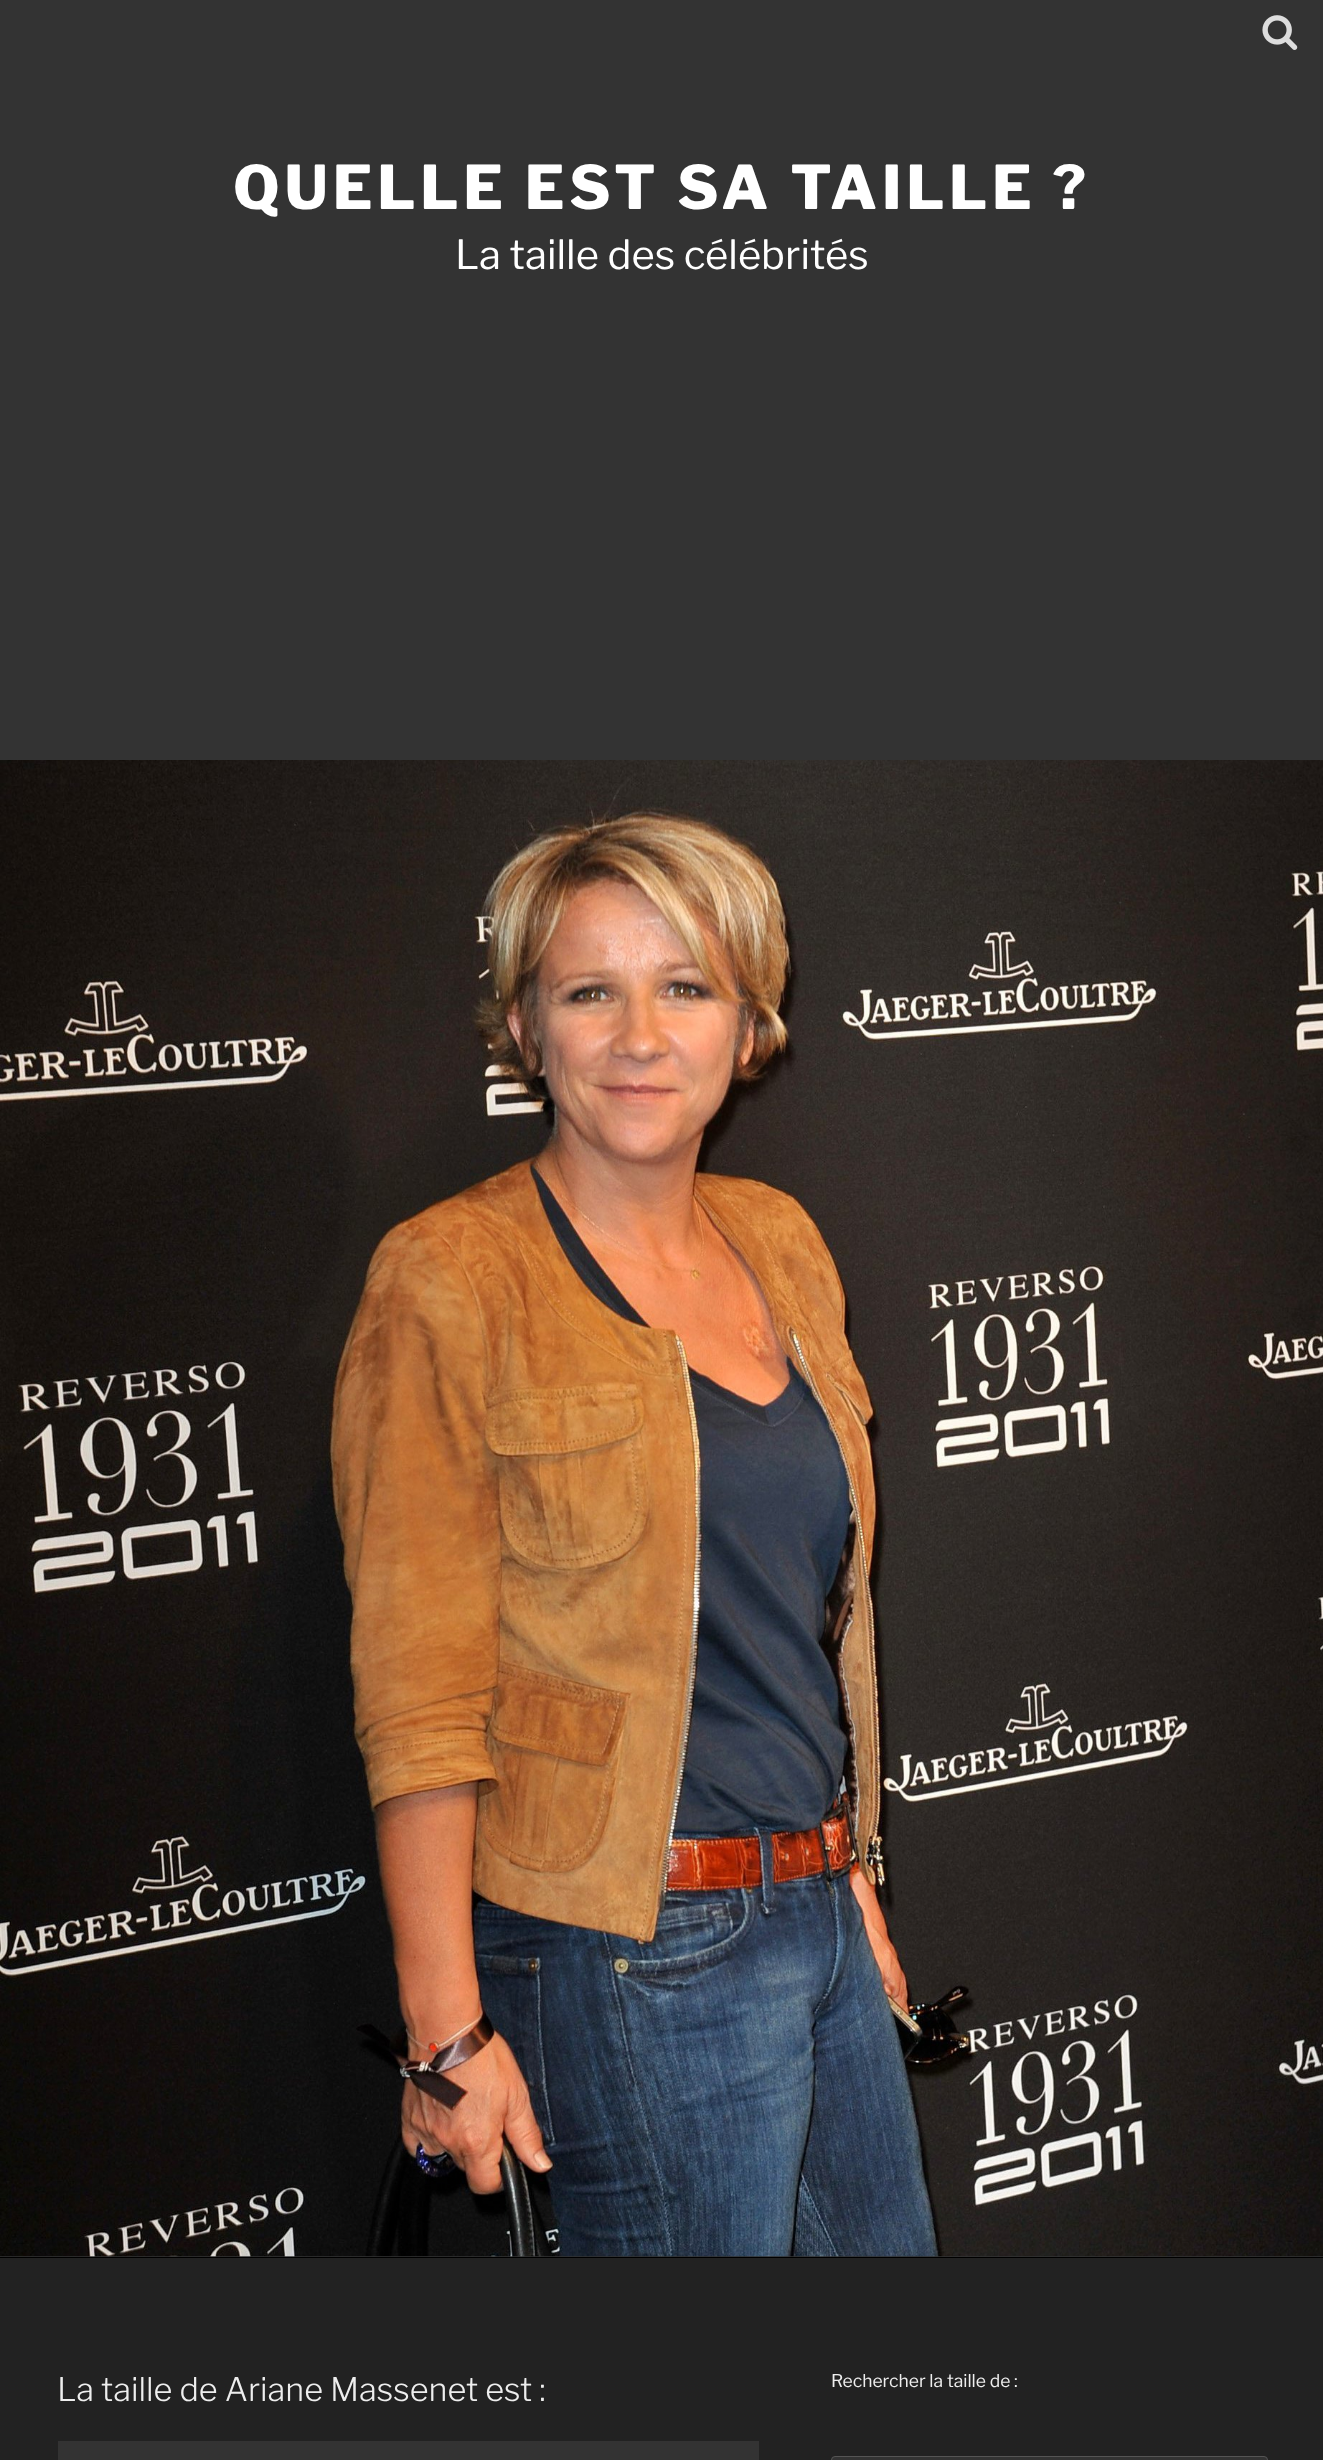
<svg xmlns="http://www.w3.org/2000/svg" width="1323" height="2460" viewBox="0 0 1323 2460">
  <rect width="100%" height="100%" fill="#222222"/>
  <rect x="0" y="0" width="1323" height="760" fill="#333333"/>
  <image x="1262" y="15" width="36" height="35" href="img1.png"/>
  <text x="233" y="209" font-family="Libre Franklin" font-size="60" font-weight="800" letter-spacing="4.8" fill="#ffffff">QUELLE EST SA TAILLE ?</text>
  <text x="455" y="269" font-family="Libre Franklin" font-size="40" fill="#ffffff">La taille des célébrités</text>
  <rect x="0" y="2257" width="1323" height="1" fill="#000000"/>
  <rect x="0" y="2256" width="1323" height="1" fill="#333333"/>
  <image x="0" y="760" width="1323" height="1497" href="img2.png"/>
  <text x="57" y="2401" font-family="Libre Franklin" font-size="32.5" font-weight="300" fill="#eeeeee">La taille de Ariane Massenet est :</text>
  <rect x="58" y="2441" width="701" height="19" fill="#333333"/>
  <text x="831" y="2387" font-family="Libre Franklin" font-size="17.5" fill="#eeeeee">Rechercher la taille de :</text>
  <rect x="831.5" y="2456.5" width="436" height="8" rx="3.5" fill="#333333" stroke="#555555"/>
</svg>
